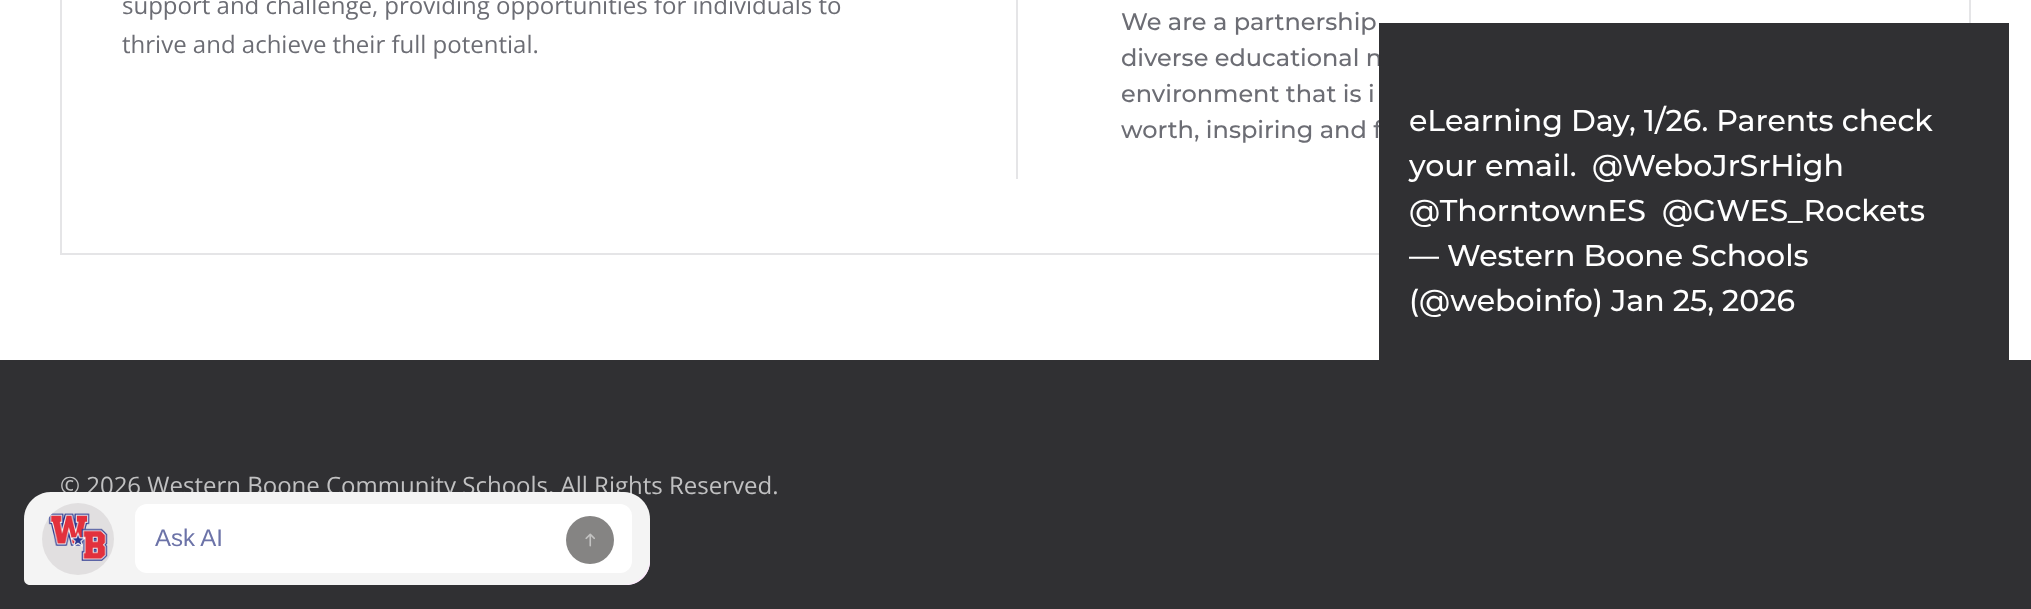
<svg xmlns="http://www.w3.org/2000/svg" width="2031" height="609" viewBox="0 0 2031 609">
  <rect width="100%" height="100%" fill="#ffffff"/>
  <rect x="61" y="-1" width="1909" height="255" fill="none" stroke="#e5e5e7" stroke-width="2"/>
  <text x="122" y="14" font-family="Open Sans" font-size="24" fill="#6c6d74">support and challenge, providing opportunities for individuals to</text>
  <text x="122" y="53" font-family="Open Sans" font-size="24" fill="#6c6d74">thrive and achieve their full potential.</text>
  <rect x="1016" y="0" width="2" height="179" fill="#e5e5e7"/>
  <text x="1121" y="30" font-family="Montserrat" font-size="24" font-weight="100" fill="#6c6d74">We are a partnership</text>
  <text x="1121" y="66" font-family="Montserrat" font-size="24" font-weight="100" fill="#6c6d74">diverse educational n</text>
  <text x="1121" y="102" font-family="Montserrat" font-size="24" font-weight="100" fill="#6c6d74">environment that is i</text>
  <text x="1121" y="138" font-family="Montserrat" font-size="24" font-weight="100" fill="#6c6d74">worth, inspiring and f</text>
  <rect x="0" y="360" width="2031" height="249" fill="#303033"/>
  <text x="60" y="494" font-family="Open Sans" font-size="24" fill="#c1c1c2">© 2026 Western Boone Community Schools. All Rights Reserved.</text>
  <rect x="1379" y="23" width="630" height="337" fill="#303033"/>
  <text x="1409" y="131" font-family="Montserrat" font-size="30" font-weight="100" fill="#ffffff">eLearning Day, 1/26. Parents check</text>
  <text x="1409" y="176" font-family="Montserrat" font-size="30" font-weight="100" fill="#ffffff">your email.</text>
  <text x="1592" y="176" font-family="Montserrat" font-size="30" font-weight="100" fill="#ffffff">@WeboJrSrHigh</text>
  <text x="1409" y="221" font-family="Montserrat" font-size="30" font-weight="100" fill="#ffffff">@ThorntownES</text>
  <text x="1662" y="221" font-family="Montserrat" font-size="30" font-weight="100" fill="#ffffff">@GWES_Rockets</text>
  <text x="1409" y="266" font-family="Montserrat" font-size="30" font-weight="100" fill="#ffffff">— Western Boone Schools</text>
  <text x="1409" y="311" font-family="Montserrat" font-size="30" font-weight="100" fill="#ffffff">(@weboinfo) Jan 25, 2026</text>
  <path d="M24 543H650V561C650 574.5 639.5 585 626 585H48C34.5 585 24 574.5 24 561Z" fill="#fff6ff"/>
  <path d="M24 543H650V561C650 574 639 585 626 585H48C35 585 24 574 24 561ZM26 543H648V561C648 573 638 584 626 584H48C36 584 26 573 26 561Z" fill="#ffe5ff" fill-rule="evenodd"/>
  <path d="M51 492H623C638 492 650 504 650 519V558C650 573 638 585 623 585H30C26.5 585 24 582.5 24 579V519C24 504 36 492 51 492Z" fill="#f4f4f4"/>
  <circle cx="78" cy="539" r="36" fill="#e1dfe0"/>
  <image x="48" y="513" width="60" height="48" href="img1.png"/>
  <rect x="135" y="504" width="497" height="69" rx="12" fill="#ffffff"/>
  <text x="155" y="546" font-family="Liberation Sans" font-size="24" fill="#6c73a8">Ask AI</text>
  <circle cx="590" cy="540" r="24" fill="#858483"/>
  <image x="585" y="533" width="10" height="14" href="img2.png"/>
</svg>
